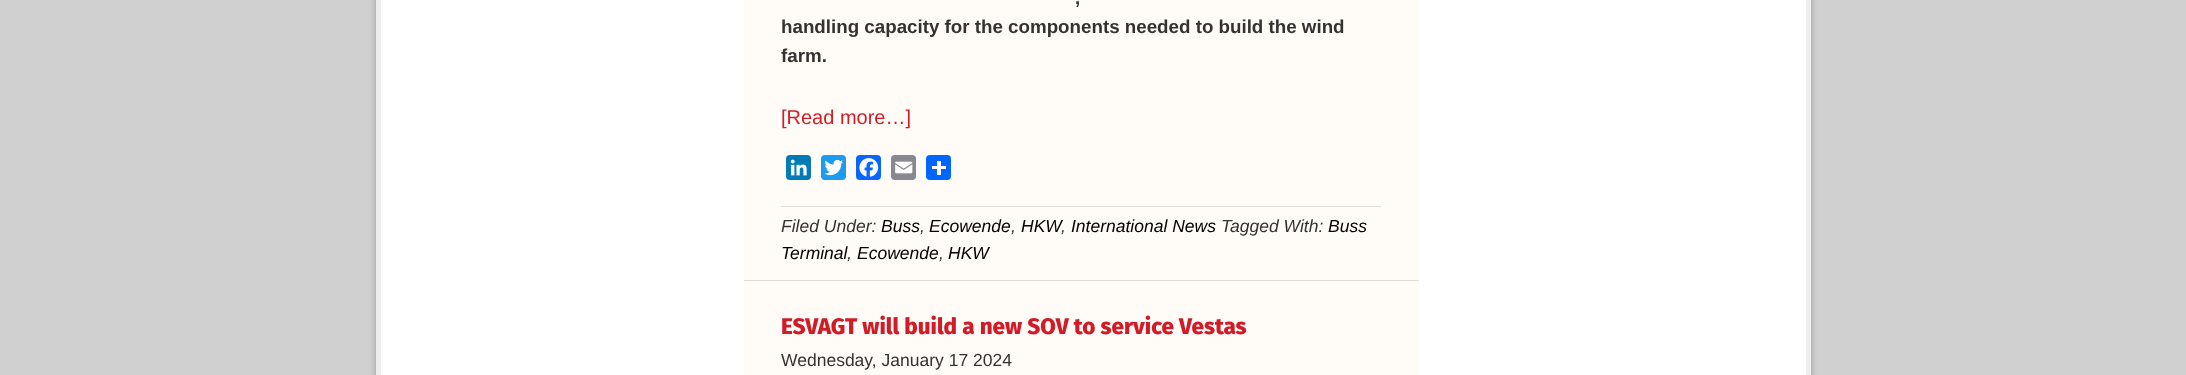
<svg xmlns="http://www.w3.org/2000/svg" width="2186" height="375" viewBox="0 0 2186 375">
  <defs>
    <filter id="blur1" x="-50%" y="-200%" width="200%" height="500%"><feGaussianBlur stdDeviation="3"/></filter>
  </defs>
  <rect width="100%" height="100%" fill="#d0d0d0"/>
  <rect x="376" y="-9" width="1435" height="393" fill="#999999" filter="url(#blur1)"/>
  <rect x="378.5" y="-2.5" width="1430" height="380" fill="#ffffff" stroke="#eeeeee" stroke-width="5"/>
  <rect x="744" y="0" width="675" height="280" fill="#fffcf7"/>
  <rect x="744" y="280" width="675" height="1" fill="#dddddd"/>
  <text x="1075" y="4" font-family="Liberation Sans" font-size="18.75" font-weight="bold" fill="#333333">,</text>
  <text x="781" y="33" font-family="Liberation Sans" font-size="18.75" font-weight="bold" fill="#333333">handling capacity for the components needed to build the wind</text>
  <text x="781" y="62" font-family="Liberation Sans" font-size="18.75" font-weight="bold" fill="#333333">farm.</text>
  <text x="781" y="124" font-family="Liberation Sans" font-size="20" fill="#d11b27">[Read more…]</text>
  <rect x="786" y="155" width="25" height="25" rx="4" fill="#007bb5"/>
  <image x="790" y="159" width="17" height="17" href="img1.png"/>
  <rect x="821" y="155" width="25" height="25" rx="4" fill="#1d9bf0"/>
  <image x="824" y="159" width="19" height="17" href="img2.png"/>
  <rect x="856" y="155" width="25" height="25" rx="4" fill="#0866ff"/>
  <image x="859" y="158" width="20" height="19" href="img3.png"/>
  <rect x="891" y="155" width="25" height="25" rx="4" fill="#888990"/>
  <image x="895" y="161" width="18" height="13" href="img4.png"/>
  <rect x="926" y="155" width="25" height="25" rx="4" fill="#0166ff"/>
  <rect x="937" y="161" width="4" height="14" fill="#ffffff"/>
  <rect x="932" y="166" width="14" height="3" fill="#ffffff"/>
  <rect x="781" y="206" width="600" height="1" fill="#dddddd"/>
  <text x="781" y="232" font-family="Liberation Sans" font-size="17.5" font-style="italic" fill="#333333">Filed Under:</text>
  <text x="881" y="232" font-family="Liberation Sans" font-size="17.5" font-style="italic" fill="#000000">Buss</text>
  <text x="920" y="232" font-family="Liberation Sans" font-size="17.5" font-style="italic" fill="#333333">,</text>
  <text x="929" y="232" font-family="Liberation Sans" font-size="17.5" font-style="italic" fill="#000000">Ecowende</text>
  <text x="1011" y="232" font-family="Liberation Sans" font-size="17.5" font-style="italic" fill="#333333">,</text>
  <text x="1021" y="232" font-family="Liberation Sans" font-size="17.5" font-style="italic" fill="#000000">HKW</text>
  <text x="1071" y="232" font-family="Liberation Sans" font-size="17.5" font-style="italic" fill="#000000">International News</text>
  <text x="1221" y="232" font-family="Liberation Sans" font-size="17.5" font-style="italic" fill="#333333">Tagged With:</text>
  <text x="1328" y="232" font-family="Liberation Sans" font-size="17.5" font-style="italic" fill="#000000">Buss</text>
  <text x="1061" y="232" font-family="Liberation Sans" font-size="17.5" font-style="italic" fill="#333333">,</text>
  <text x="781" y="259" font-family="Liberation Sans" font-size="17.5" font-style="italic" fill="#000000">Terminal</text>
  <text x="857" y="259" font-family="Liberation Sans" font-size="17.5" font-style="italic" fill="#000000">Ecowende</text>
  <text x="948" y="259" font-family="Liberation Sans" font-size="17.5" font-style="italic" fill="#000000">HKW</text>
  <text x="847" y="259" font-family="Liberation Sans" font-size="17.5" font-style="italic" fill="#333333">,</text>
  <text x="939" y="259" font-family="Liberation Sans" font-size="17.5" font-style="italic" fill="#333333">,</text>
  <rect x="744" y="281" width="675" height="94" fill="#fffcf7"/>
  <text x="781" y="334" font-family="Fira Sans" font-size="22.5" font-weight="800" fill="#d11b27">ESVAGT will build a new SOV to service Vestas</text>
  <text x="781" y="366" font-family="Liberation Sans" font-size="17.5" fill="#333333">Wednesday, January 17 2024</text>
</svg>
